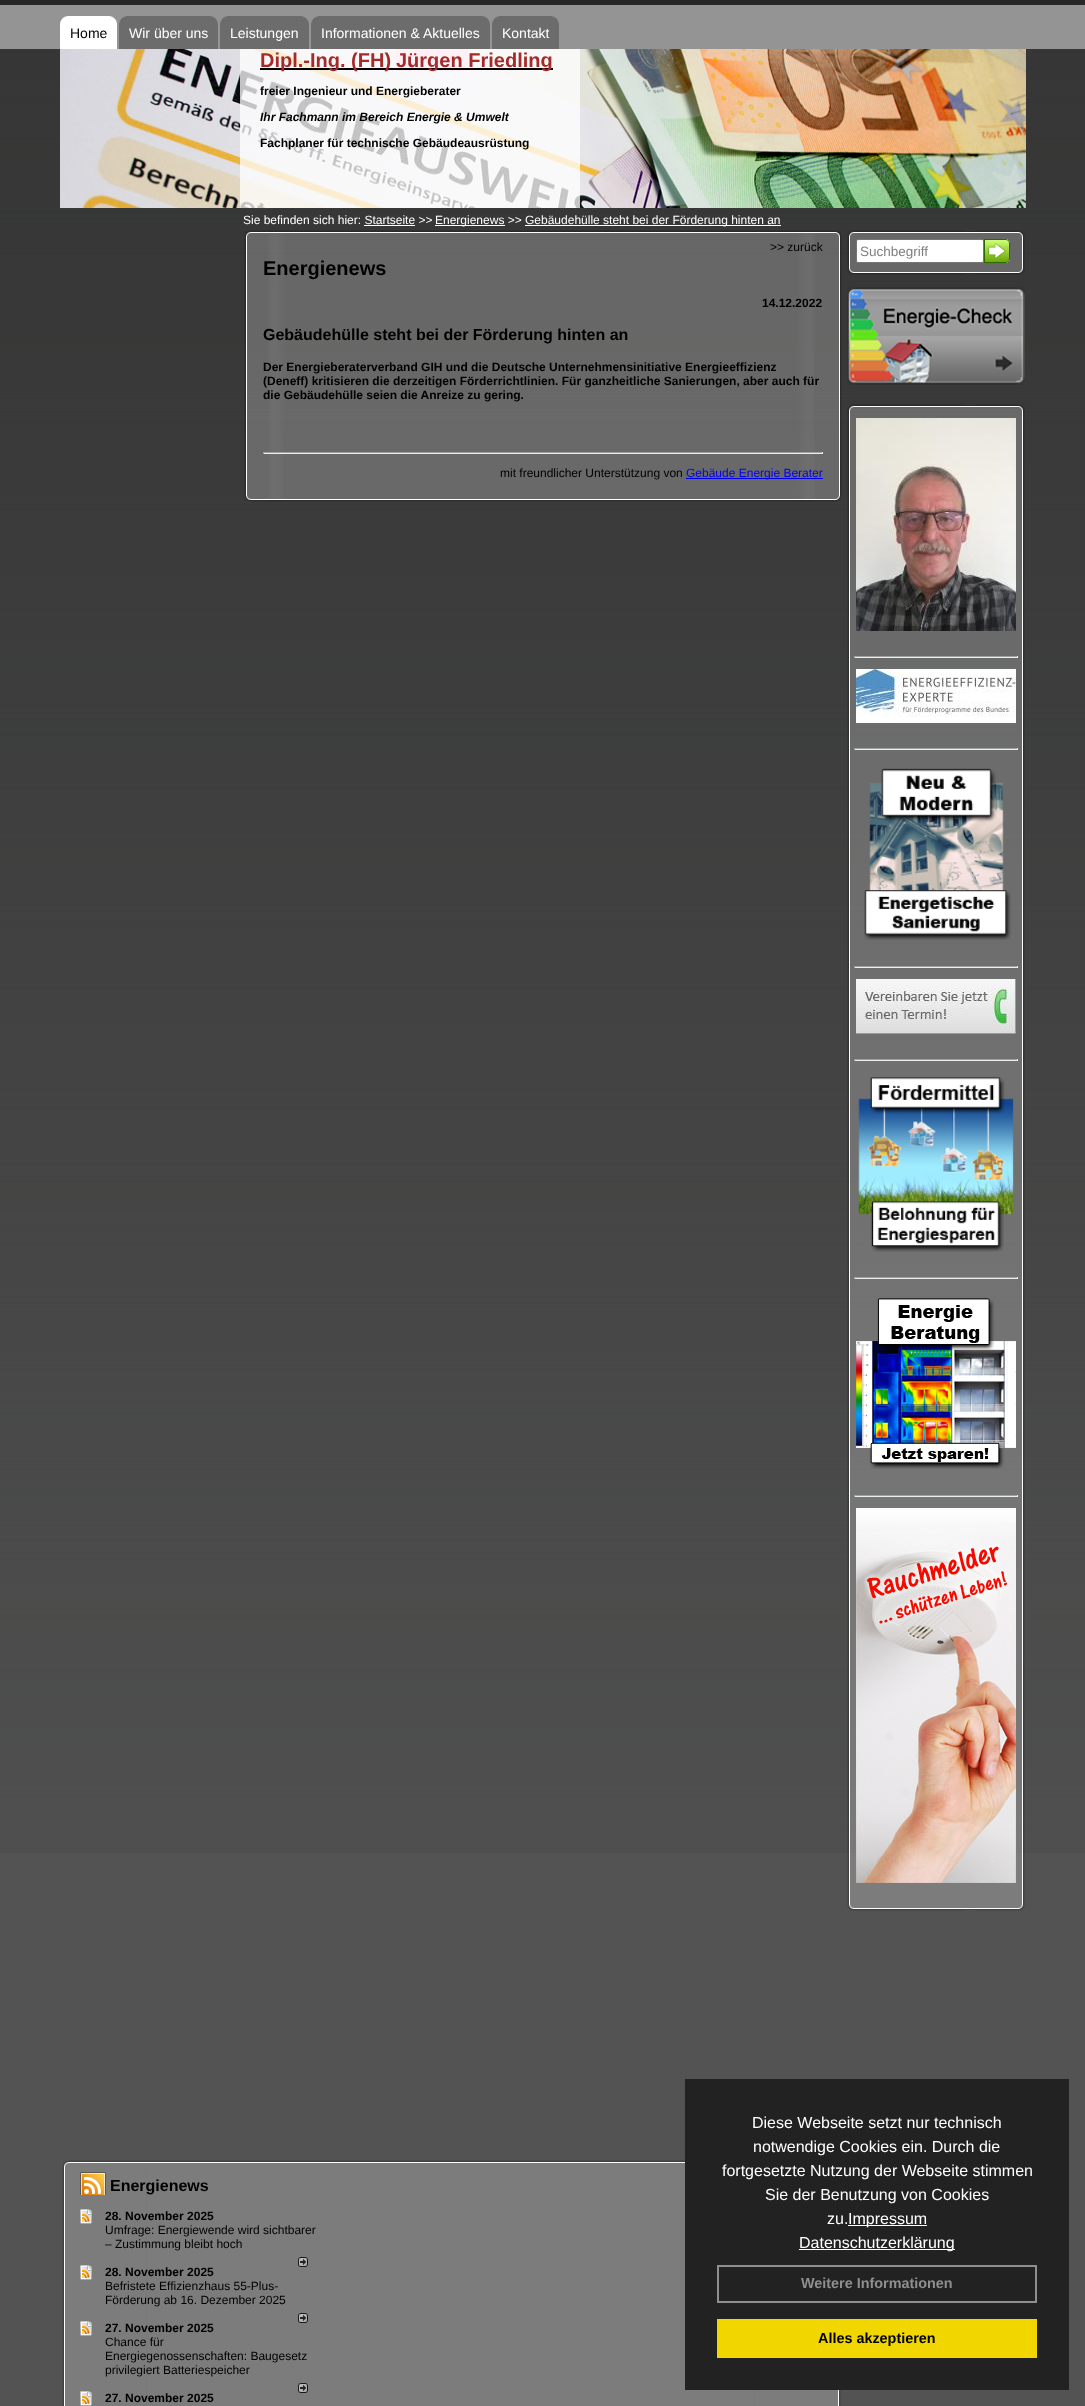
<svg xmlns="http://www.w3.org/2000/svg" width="1085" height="2406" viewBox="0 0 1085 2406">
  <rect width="100%" height="100%" fill="#535353"/>
  <image x="0" y="49" width="1085" height="1804" href="img1.png"/>
  <image x="0" y="0" width="1085" height="49" href="img2.png"/>
  <image x="60" y="16" width="10" height="33" href="img3.png"/>
  <rect x="70" y="16" width="37" height="33" fill="#ffffff"/>
  <text x="70" y="38" font-family="Liberation Sans" font-size="14" fill="#000000">Home</text>
  <image x="107" y="16" width="10" height="33" href="img4.png"/>
  <image x="119" y="16" width="10" height="33" href="img5.png"/>
  <rect x="129" y="16" width="79" height="33" fill="#6c6c6c"/>
  <text x="129" y="38" font-family="Liberation Sans" font-size="14" fill="#ffffff">Wir über uns</text>
  <image x="208" y="16" width="10" height="33" href="img6.png"/>
  <image x="220" y="16" width="10" height="33" href="img5.png"/>
  <rect x="230" y="16" width="69" height="33" fill="#6c6c6c"/>
  <text x="230" y="38" font-family="Liberation Sans" font-size="14" fill="#ffffff">Leistungen</text>
  <image x="299" y="16" width="10" height="33" href="img6.png"/>
  <image x="311" y="16" width="10" height="33" href="img5.png"/>
  <rect x="321" y="16" width="159" height="33" fill="#6c6c6c"/>
  <text x="321" y="38" font-family="Liberation Sans" font-size="14" fill="#ffffff">Informationen &amp; Aktuelles</text>
  <image x="480" y="16" width="10" height="33" href="img6.png"/>
  <image x="492" y="16" width="10" height="33" href="img5.png"/>
  <rect x="502" y="16" width="47" height="33" fill="#6c6c6c"/>
  <text x="502" y="38" font-family="Liberation Sans" font-size="14" fill="#ffffff">Kontakt</text>
  <image x="549" y="16" width="10" height="33" href="img6.png"/>
  <image x="60" y="49" width="966" height="159" href="img7.png"/>
  <rect x="240" y="49" width="340" height="159" fill="#ffffff" fill-opacity="0.75"/>
  <rect x="260" y="68" width="136" height="2" fill="#000000"/>
  <text x="260" y="67" font-family="Liberation Sans" font-size="20" font-weight="bold" fill="#a52a2a">Dipl.-Ing. (FH)</text>
  <rect x="396" y="49" width="72" height="22" fill="#fff0f5"/>
  <rect x="396" y="68" width="157" height="2" fill="#000000"/>
  <text x="396" y="67" font-family="Liberation Sans" font-size="20" font-weight="bold" fill="#a52a2a">Jürgen Friedling</text>
  <text x="260" y="95" font-family="Liberation Sans" font-size="12" font-weight="bold" fill="#000000">freier Ingenieur und Energieberater</text>
  <text x="260" y="121" font-family="Liberation Sans" font-size="12" font-weight="bold" font-style="italic" fill="#000000">Ihr Fachmann im Bereich Energie &amp; Umwelt</text>
  <text x="260" y="147" font-family="Liberation Sans" font-size="12" font-weight="bold" fill="#000000">Fachplaner für technische Gebäudeausrüstung</text>
  <text x="243" y="224" font-family="Liberation Sans" font-size="12" fill="#ffffff">Sie befinden sich hier: Startseite &gt;&gt;</text>
  <rect x="435" y="225" width="70" height="1" fill="#ffffff"/>
  <text x="435" y="224" font-family="Liberation Sans" font-size="12" fill="#ffffff">Energienews &gt;&gt;</text>
  <rect x="525" y="225" width="256" height="1" fill="#ffffff"/>
  <text x="525" y="224" font-family="Liberation Sans" font-size="12" fill="#ffffff">Gebäudehülle steht bei der Förderung hinten an</text>
  <rect x="364" y="225" width="51" height="1" fill="#ffffff"/>
  <image x="244" y="230" width="598" height="9" href="img8.png"/>
  <image x="244" y="239" width="598" height="254" href="img9.png"/>
  <text x="770" y="251" font-family="Liberation Sans" font-size="12" fill="#000000">&gt;&gt; zurück</text>
  <text x="263" y="275" font-family="Liberation Sans" font-size="20" font-weight="bold" fill="#000000">Energienews</text>
  <text x="762" y="307" font-family="Liberation Sans" font-size="12" font-weight="bold" fill="#000000">14.12.2022</text>
  <text x="263" y="340" font-family="Liberation Sans" font-size="16" font-weight="bold" fill="#000000">Gebäudehülle steht bei der Förderung hinten an</text>
  <text x="263" y="371" font-family="Liberation Sans" font-size="12" font-weight="bold" fill="#000000">Der Energieberaterverband GIH und die Deutsche Unternehmensinitiative Energieeffizienz</text>
  <text x="263" y="385" font-family="Liberation Sans" font-size="12" font-weight="bold" fill="#000000">(Deneff) kritisieren die derzeitigen Förderrichtlinien. Für ganzheitliche Sanierungen, aber auch für</text>
  <text x="263" y="399" font-family="Liberation Sans" font-size="12" font-weight="bold" fill="#000000">die Gebäudehülle seien die Anreize zu gering.</text>
  <rect x="263" y="452" width="560" height="1" fill="#9f9f9f"/>
  <rect x="822" y="452" width="1" height="2" fill="#eeeeee"/>
  <rect x="263" y="453" width="560" height="1" fill="#eeeeee"/>
  <rect x="263" y="452" width="1" height="2" fill="#9f9f9f"/>
  <text x="500" y="477" font-family="Liberation Sans" font-size="12" fill="#000000">mit freundlicher Unterstützung von</text>
  <rect x="686" y="478" width="137" height="1" fill="#0000ee"/>
  <text x="686" y="477" font-family="Liberation Sans" font-size="12" fill="#0000ee">Gebäude Energie Berater</text>
  <image x="244" y="493" width="598" height="9" href="img10.png"/>
  <image x="847" y="230" width="178" height="9" href="img11.png"/>
  <image x="847" y="239" width="178" height="27" href="img12.png"/>
  <rect x="856.5" y="239.5" width="127" height="23" rx="1.5" fill="#ffffff" stroke="#767676"/>
  <text x="860" y="256" font-family="Liberation Sans" font-size="13.5" fill="#808080">Suchbegriff</text>
  <image x="984" y="239" width="26" height="24" href="img13.png"/>
  <image x="847" y="266" width="178" height="9" href="img14.png"/>
  <image x="847" y="287" width="178" height="98" href="img15.png"/>
  <image x="847" y="404" width="178" height="9" href="img16.png"/>
  <image x="847" y="413" width="178" height="1489" href="img17.png"/>
  <image x="856" y="418" width="160" height="213" href="img18.png"/>
  <rect x="854" y="656" width="164" height="1" fill="#9f9f9f"/>
  <rect x="1017" y="656" width="1" height="2" fill="#eeeeee"/>
  <rect x="854" y="657" width="164" height="1" fill="#eeeeee"/>
  <rect x="854" y="656" width="1" height="2" fill="#9f9f9f"/>
  <image x="856" y="669" width="160" height="54" href="img19.png"/>
  <rect x="854" y="748" width="164" height="1" fill="#9f9f9f"/>
  <rect x="1017" y="748" width="1" height="2" fill="#eeeeee"/>
  <rect x="854" y="749" width="164" height="1" fill="#eeeeee"/>
  <rect x="854" y="748" width="1" height="2" fill="#9f9f9f"/>
  <image x="864" y="768" width="147" height="172" href="img20.png"/>
  <rect x="854" y="966" width="164" height="1" fill="#9f9f9f"/>
  <rect x="1017" y="966" width="1" height="2" fill="#eeeeee"/>
  <rect x="854" y="967" width="164" height="1" fill="#eeeeee"/>
  <rect x="854" y="966" width="1" height="2" fill="#9f9f9f"/>
  <image x="856" y="979" width="160" height="55" href="img21.png"/>
  <rect x="854" y="1059" width="164" height="1" fill="#9f9f9f"/>
  <rect x="1017" y="1059" width="1" height="2" fill="#eeeeee"/>
  <rect x="854" y="1060" width="164" height="1" fill="#eeeeee"/>
  <rect x="854" y="1059" width="1" height="2" fill="#9f9f9f"/>
  <image x="858" y="1077" width="156" height="175" href="img22.png"/>
  <rect x="854" y="1277" width="164" height="1" fill="#9f9f9f"/>
  <rect x="1017" y="1277" width="1" height="2" fill="#eeeeee"/>
  <rect x="854" y="1278" width="164" height="1" fill="#eeeeee"/>
  <rect x="854" y="1277" width="1" height="2" fill="#9f9f9f"/>
  <image x="856" y="1298" width="160" height="171" href="img23.png"/>
  <rect x="854" y="1495" width="164" height="1" fill="#9f9f9f"/>
  <rect x="1017" y="1495" width="1" height="2" fill="#eeeeee"/>
  <rect x="854" y="1496" width="164" height="1" fill="#eeeeee"/>
  <rect x="854" y="1495" width="1" height="2" fill="#9f9f9f"/>
  <image x="856" y="1508" width="160" height="375" href="img24.png"/>
  <image x="847" y="1902" width="178" height="9" href="img25.png"/>
  <image x="62" y="2160" width="623" height="12" href="img26.png"/>
  <image x="62" y="2172" width="779" height="234" href="img27.png"/>
  <image x="80" y="2172" width="26" height="23" href="img28.png"/>
  <text x="110" y="2191" font-family="Liberation Sans" font-size="16" font-weight="bold" fill="#000000">Energienews</text>
  <image x="80" y="2209" width="12" height="15" href="img29.png"/>
  <text x="105" y="2220" font-family="Liberation Sans" font-size="12" font-weight="bold" fill="#000000">28. November 2025</text>
  <text x="105" y="2234" font-family="Liberation Sans" font-size="12" fill="#000000">Umfrage: Energiewende wird sichtbarer</text>
  <text x="105" y="2248" font-family="Liberation Sans" font-size="12" fill="#000000">– Zustimmung bleibt hoch</text>
  <image x="298" y="2257" width="10" height="10" href="img30.png"/>
  <image x="80" y="2265" width="12" height="15" href="img29.png"/>
  <text x="105" y="2276" font-family="Liberation Sans" font-size="12" font-weight="bold" fill="#000000">28. November 2025</text>
  <text x="105" y="2290" font-family="Liberation Sans" font-size="12" fill="#000000">Befristete Effizienzhaus 55-Plus-</text>
  <text x="105" y="2304" font-family="Liberation Sans" font-size="12" fill="#000000">Förderung ab 16. Dezember 2025</text>
  <image x="298" y="2313" width="10" height="10" href="img30.png"/>
  <image x="80" y="2321" width="12" height="15" href="img29.png"/>
  <text x="105" y="2332" font-family="Liberation Sans" font-size="12" font-weight="bold" fill="#000000">27. November 2025</text>
  <text x="105" y="2346" font-family="Liberation Sans" font-size="12" fill="#000000">Chance für</text>
  <text x="105" y="2360" font-family="Liberation Sans" font-size="12" fill="#000000">Energiegenossenschaften: Baugesetz</text>
  <text x="105" y="2374" font-family="Liberation Sans" font-size="12" fill="#000000">privilegiert Batteriespeicher</text>
  <image x="298" y="2383" width="10" height="10" href="img30.png"/>
  <image x="80" y="2391" width="12" height="15" href="img29.png"/>
  <text x="105" y="2402" font-family="Liberation Sans" font-size="12" font-weight="bold" fill="#000000">27. November 2025</text>
  <rect x="685" y="2079" width="384" height="311" fill="#222222"/>
  <text x="752" y="2128" font-family="Liberation Sans" font-size="16" fill="#ffffff">Diese Webseite setzt nur technisch</text>
  <text x="753" y="2152" font-family="Liberation Sans" font-size="16" fill="#ffffff">notwendige Cookies ein. Durch die</text>
  <text x="722" y="2176" font-family="Liberation Sans" font-size="16" fill="#ffffff">fortgesetzte Nutzung der Webseite stimmen</text>
  <text x="765" y="2200" font-family="Liberation Sans" font-size="16" fill="#ffffff">Sie der Benutzung von Cookies</text>
  <text x="827" y="2224" font-family="Liberation Sans" font-size="16" fill="#ffffff">zu.</text>
  <rect x="848" y="2225" width="79" height="1" fill="#ffffff"/>
  <text x="848" y="2224" font-family="Liberation Sans" font-size="16" fill="#ffffff">Impressum</text>
  <rect x="799" y="2249" width="156" height="1" fill="#ffffff"/>
  <text x="799" y="2248" font-family="Liberation Sans" font-size="16" fill="#ffffff">Datenschutzerklärung</text>
  <rect x="718" y="2266" width="318" height="36" fill="none" stroke="#8f8f8f" stroke-width="2"/>
  <text x="801" y="2288" font-family="Liberation Sans" font-size="14.4" font-weight="bold" fill="#8f8f8f">Weitere Informationen</text>
  <rect x="717" y="2319" width="320" height="39" fill="#f1d600"/>
  <text x="818" y="2343" font-family="Liberation Sans" font-size="14.4" font-weight="bold" fill="#000000">Alles akzeptieren</text>
</svg>
